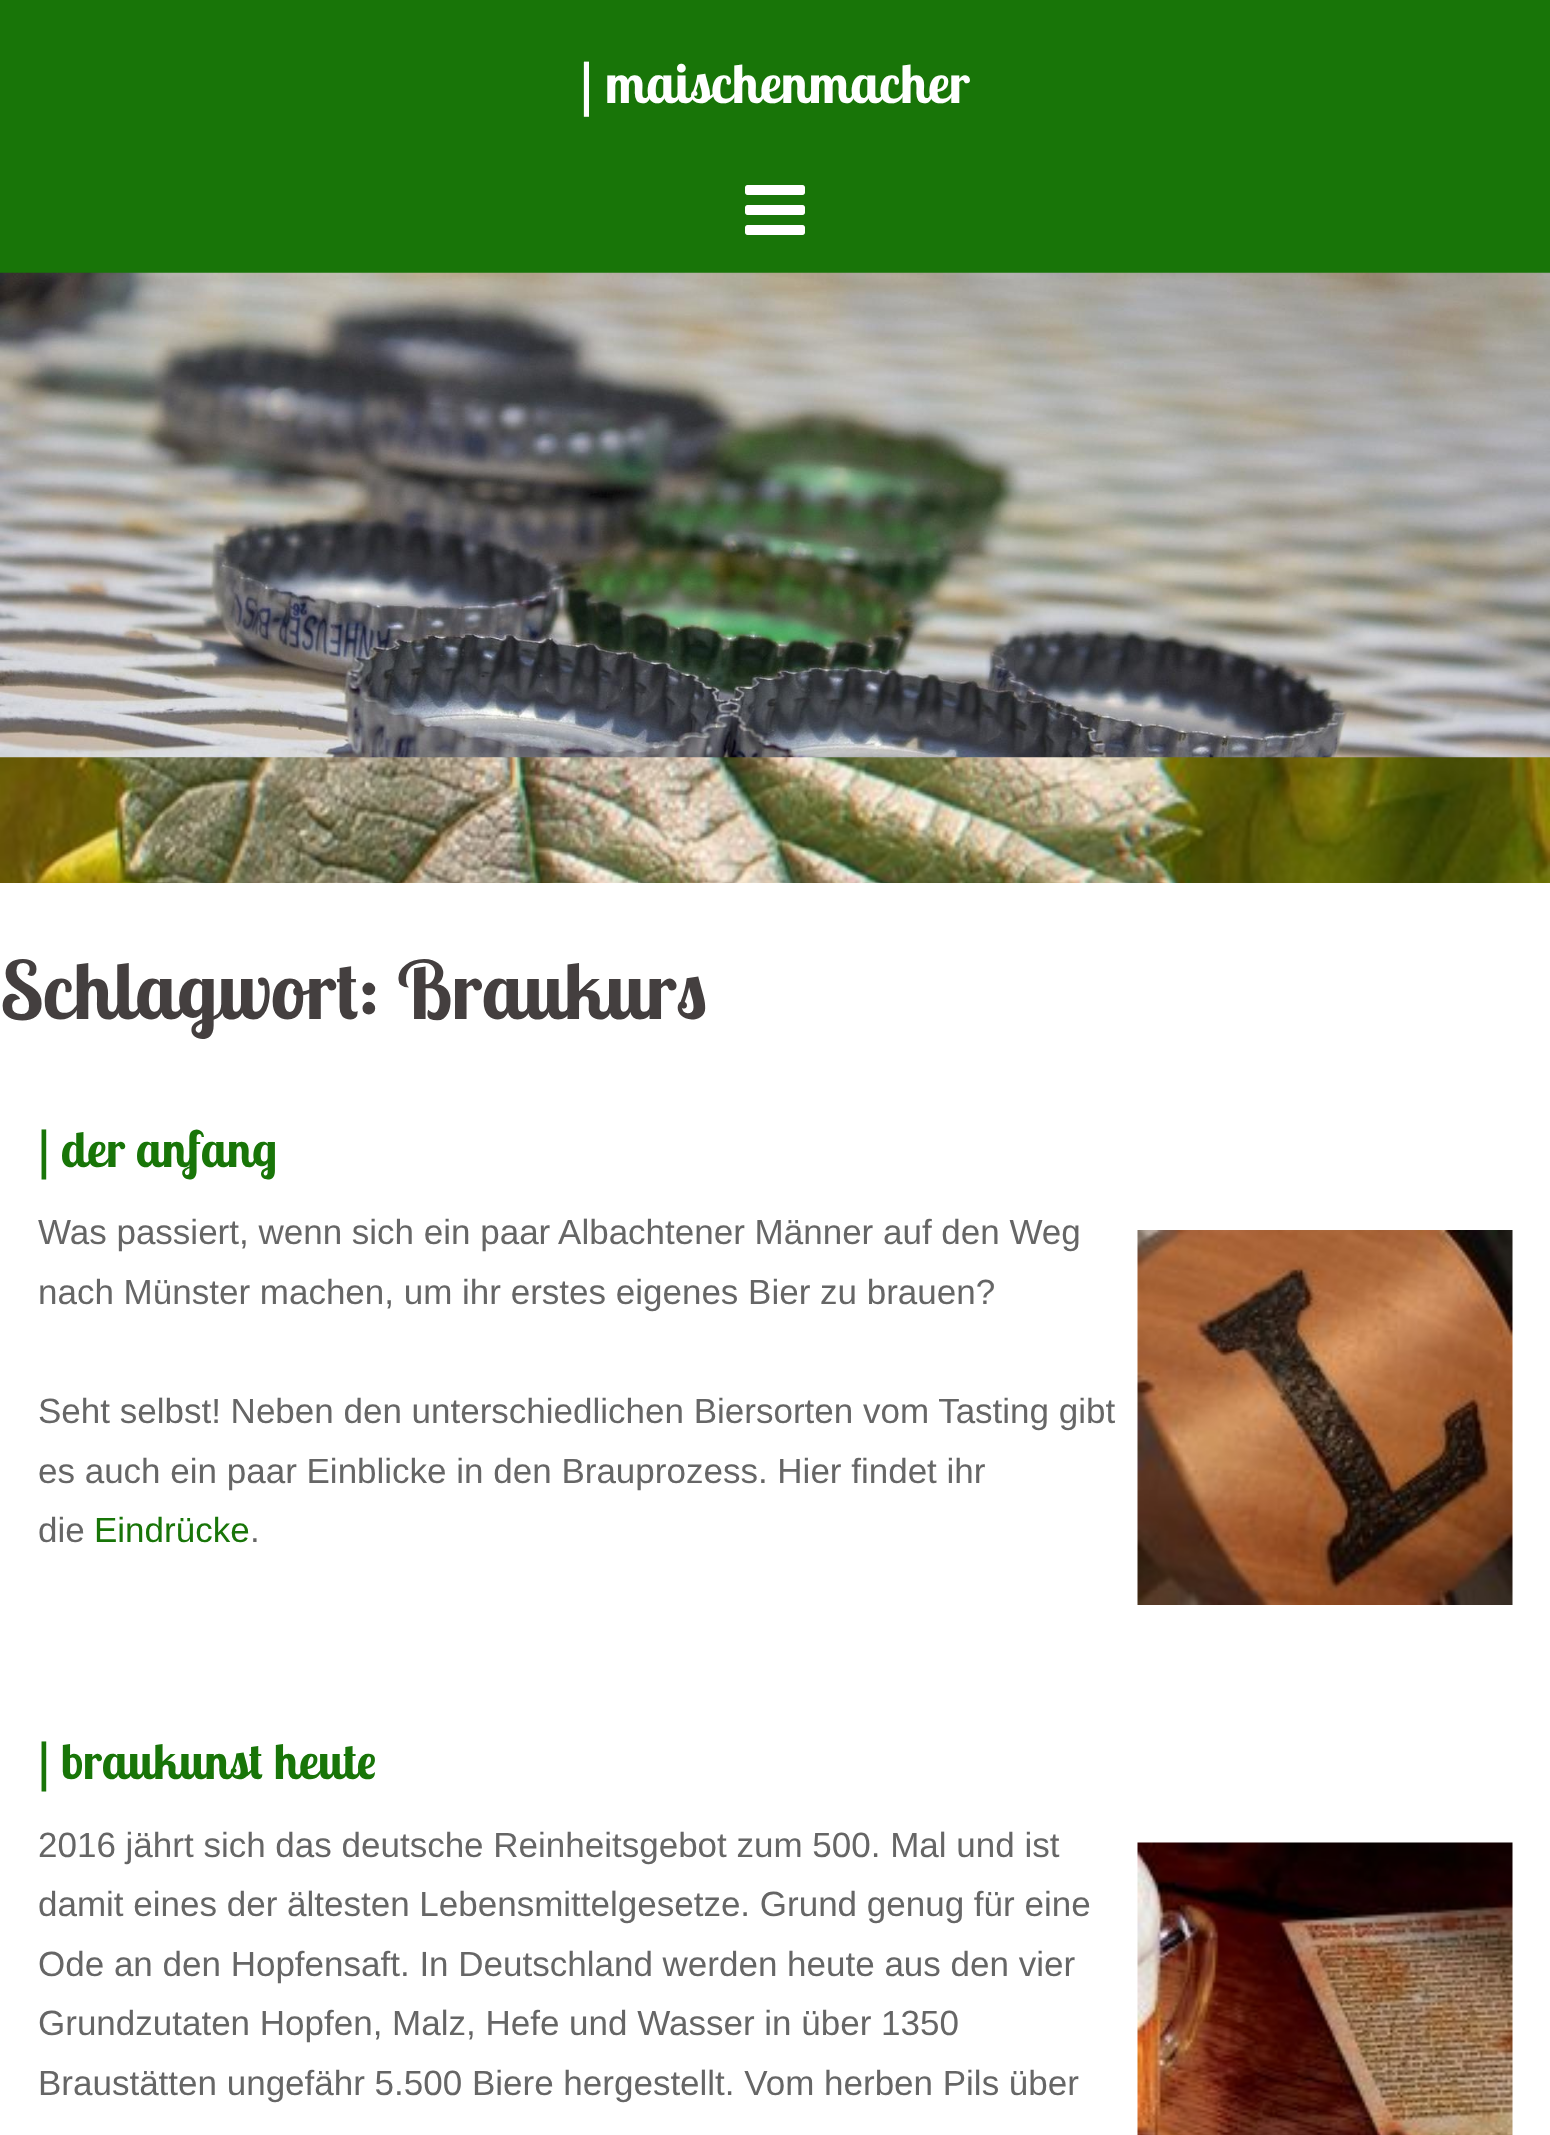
<svg xmlns="http://www.w3.org/2000/svg" width="1550" height="2135" viewBox="0 0 1550 2135">
  <rect width="100%" height="100%" fill="#ffffff"/>
  <image x="0" y="757" width="1550" height="126" href="img1.png"/>
  <rect x="0" y="0" width="1550" height="273" fill="#187508"/>
  <text x="580" y="103" font-family="Lobster Two" font-size="55" font-weight="bold" fill="#ffffff">| maischenmacher</text>
  <image x="745" y="185" width="60" height="50" href="img2.png"/>
  <image x="0" y="272" width="1550" height="486" href="img3.png"/>
  <text x="0" y="1019" font-family="Lobster Two" font-size="80" font-weight="bold" fill="#443f3f">Schlagwort: Braukurs</text>
  <text x="38" y="1167" font-family="Lobster Two" font-size="50" font-weight="bold" fill="#187508">| der anfang</text>
  <text x="38" y="1244" font-family="Liberation Sans" font-size="35" fill="#666666">Was passiert, wenn sich ein paar Albachtener Männer auf den Weg</text>
  <image x="1137" y="1230" width="376" height="375" href="img4.png"/>
  <text x="38" y="1304" font-family="Liberation Sans" font-size="35" fill="#666666">nach Münster machen, um ihr erstes eigenes Bier zu brauen?</text>
  <text x="38" y="1423" font-family="Liberation Sans" font-size="35" fill="#666666">Seht selbst! Neben den unterschiedlichen Biersorten vom Tasting gibt</text>
  <text x="38" y="1483" font-family="Liberation Sans" font-size="35" fill="#666666">es auch ein paar Einblicke in den Brauprozess. Hier findet ihr</text>
  <text x="38" y="1542" font-family="Liberation Sans" font-size="35" fill="#666666">die</text>
  <text x="94" y="1542" font-family="Liberation Sans" font-size="35" fill="#187508">Eindrücke</text>
  <text x="250" y="1542" font-family="Liberation Sans" font-size="35" fill="#666666">.</text>
  <text x="38" y="1779" font-family="Lobster Two" font-size="50" font-weight="bold" fill="#187508">| braukunst heute</text>
  <text x="38" y="1857" font-family="Liberation Sans" font-size="35" fill="#666666">2016 jährt sich das deutsche Reinheitsgebot zum 500. Mal und ist</text>
  <image x="1137" y="1842" width="376" height="293" href="img5.png"/>
  <text x="38" y="1916" font-family="Liberation Sans" font-size="35" fill="#666666">damit eines der ältesten Lebensmittelgesetze. Grund genug für eine</text>
  <text x="38" y="1976" font-family="Liberation Sans" font-size="35" fill="#666666">Ode an den Hopfensaft. In Deutschland werden heute aus den vier</text>
  <text x="38" y="2035" font-family="Liberation Sans" font-size="35" fill="#666666">Grundzutaten Hopfen, Malz, Hefe und Wasser in über 1350</text>
  <text x="38" y="2095" font-family="Liberation Sans" font-size="35" fill="#666666">Braustätten ungefähr 5.500 Biere hergestellt. Vom herben Pils über</text>
</svg>
